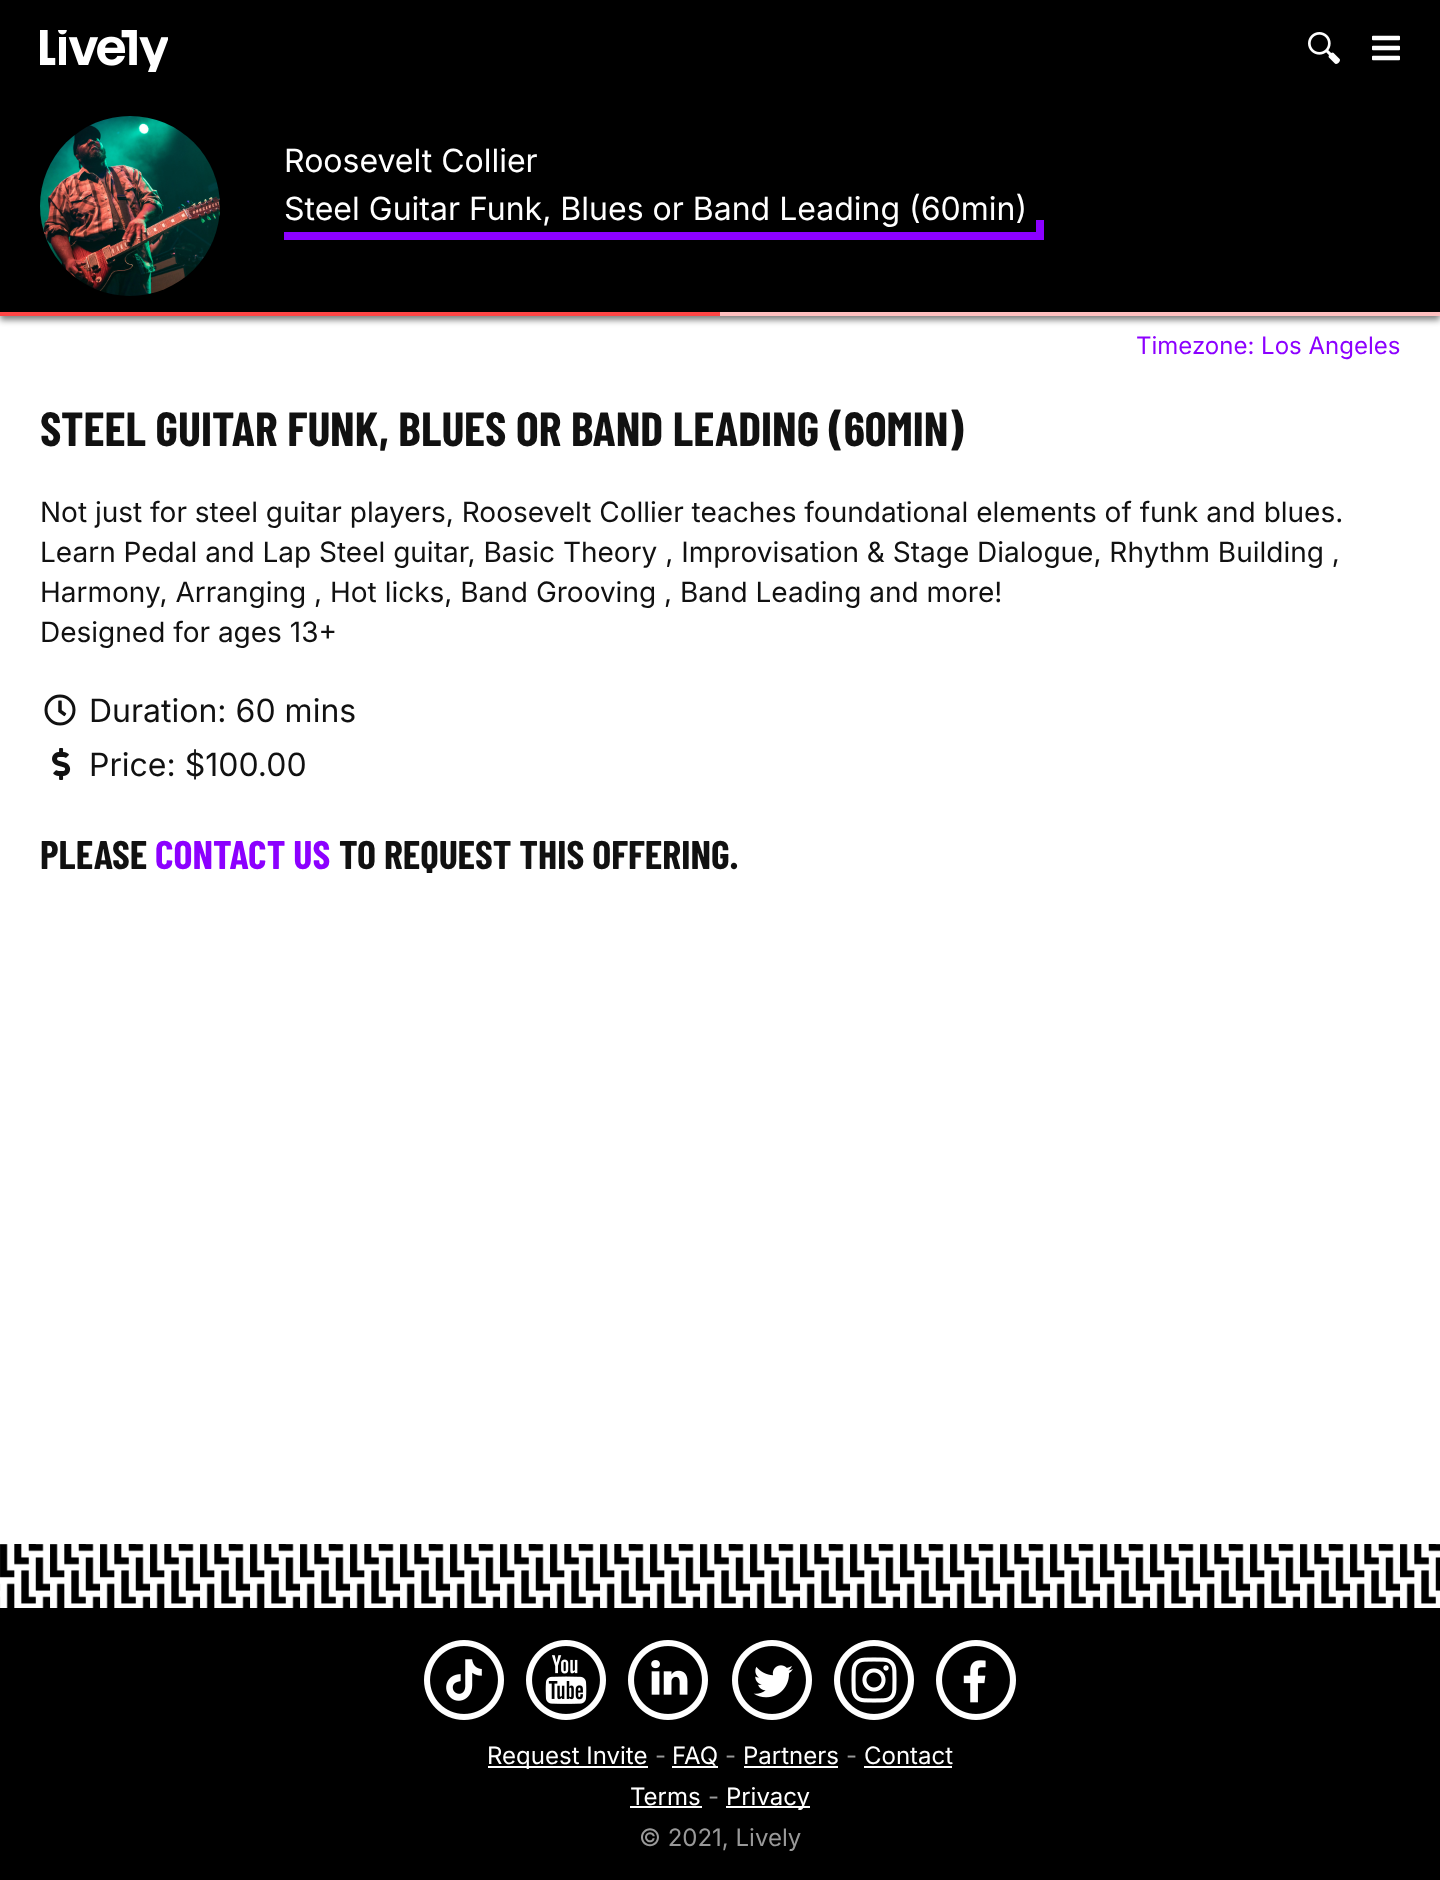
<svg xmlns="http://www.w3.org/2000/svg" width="1440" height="1880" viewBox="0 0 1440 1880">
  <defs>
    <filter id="blur1" x="-50%" y="-200%" width="200%" height="500%"><feGaussianBlur stdDeviation="3"/></filter>
  </defs>
  <rect width="100%" height="100%" fill="#000000"/>
  <image x="40" y="30" width="128" height="42" href="img1.png"/>
  <image x="1308" y="32" width="32" height="32" href="img2.png"/>
  <image x="1372" y="35" width="28" height="26" href="img3.png"/>
  <rect x="0" y="316" width="1440" height="1292" fill="#ffffff"/>
  <rect x="0" y="104" width="1440" height="216" fill="#000000" fill-opacity="0.5" filter="url(#blur1)"/>
  <image x="40" y="116" width="180" height="180" href="img4.png"/>
  <text x="284" y="172" font-family="Inter" font-size="32" fill="#ffffff">Roosevelt Collier</text>
  <rect x="284" y="232" width="760" height="8" fill="#8c00ff"/>
  <text x="284" y="220" font-family="Inter" font-size="32" fill="#ffffff">Steel Guitar Funk, Blues or Band Leading (60min)</text>
  <rect x="1036" y="220" width="8" height="20" fill="#8c00ff"/>
  <rect x="720" y="312" width="720" height="4" fill="#ffbfbf"/>
  <rect x="0" y="312" width="720" height="4" fill="#ff4646"/>
  <text x="1136" y="354" font-family="Inter" font-size="24" fill="#8c00ff">Timezone: Los Angeles</text>
  <text x="40" y="446" font-family="Barlow Condensed" font-size="48" font-weight="bold" fill="#111111">STEEL GUITAR FUNK, BLUES OR BAND LEADING (60MIN)</text>
  <text x="40" y="522" font-family="Inter" font-size="28" fill="#111111">Not just for steel guitar players, Roosevelt Collier teaches foundational elements of funk and blues.</text>
  <text x="40" y="562" font-family="Inter" font-size="28" fill="#111111">Learn Pedal and Lap Steel guitar, Basic Theory , Improvisation &amp; Stage Dialogue, Rhythm Building ,</text>
  <text x="40" y="602" font-family="Inter" font-size="28" fill="#111111">Harmony, Arranging , Hot licks, Band Grooving , Band Leading and more!</text>
  <text x="40" y="642" font-family="Inter" font-size="28" fill="#111111">Designed for ages 13+</text>
  <image x="44" y="694" width="32" height="32" href="img5.png"/>
  <text x="89" y="722" font-family="Inter" font-size="32" fill="#111111">Duration: 60 mins</text>
  <image x="52" y="748" width="19" height="32" href="img6.png"/>
  <text x="89" y="776" font-family="Inter" font-size="32" fill="#111111">Price: $100.00</text>
  <text x="40" y="869" font-family="Barlow Condensed" font-size="40" font-weight="bold" fill="#111111">PLEASE</text>
  <text x="155" y="869" font-family="Barlow Condensed" font-size="40" font-weight="bold" fill="#8c00ff">CONTACT US</text>
  <text x="339" y="869" font-family="Barlow Condensed" font-size="40" font-weight="bold" fill="#111111">TO REQUEST THIS OFFERING.</text>
  <image x="0" y="1544" width="1440" height="64" href="img7.png"/>
  <image x="424" y="1640" width="80" height="80" href="img8.png"/>
  <image x="526" y="1640" width="80" height="80" href="img9.png"/>
  <image x="628" y="1640" width="80" height="80" href="img10.png"/>
  <image x="732" y="1640" width="80" height="80" href="img11.png"/>
  <image x="834" y="1640" width="80" height="80" href="img12.png"/>
  <image x="936" y="1640" width="80" height="80" href="img13.png"/>
  <rect x="488" y="1766" width="160" height="2" fill="#ffffff"/>
  <text x="487" y="1764" font-family="Inter" font-size="24" fill="#ffffff">Request Invite</text>
  <text x="655" y="1764" font-family="Inter" font-size="24" fill="#999999">-</text>
  <text x="672" y="1764" font-family="Inter" font-size="24" fill="#ffffff">FAQ</text>
  <rect x="672" y="1766" width="46" height="2" fill="#ffffff"/>
  <text x="725" y="1764" font-family="Inter" font-size="24" fill="#999999">-</text>
  <text x="743" y="1764" font-family="Inter" font-size="24" fill="#ffffff">Partners</text>
  <rect x="744" y="1766" width="94" height="2" fill="#ffffff"/>
  <text x="846" y="1764" font-family="Inter" font-size="24" fill="#999999">-</text>
  <text x="864" y="1764" font-family="Inter" font-size="24" fill="#ffffff">Contact</text>
  <rect x="864" y="1766" width="88" height="2" fill="#ffffff"/>
  <text x="630" y="1805" font-family="Inter" font-size="24" fill="#ffffff">Terms</text>
  <rect x="630" y="1806" width="72" height="2" fill="#ffffff"/>
  <text x="708" y="1805" font-family="Inter" font-size="24" fill="#999999">-</text>
  <rect x="726" y="1806" width="84" height="2" fill="#ffffff"/>
  <text x="726" y="1805" font-family="Inter" font-size="24" fill="#ffffff">Privacy</text>
  <text x="639" y="1846" font-family="Inter" font-size="24" fill="#999999">© 2021, Lively</text>
</svg>
